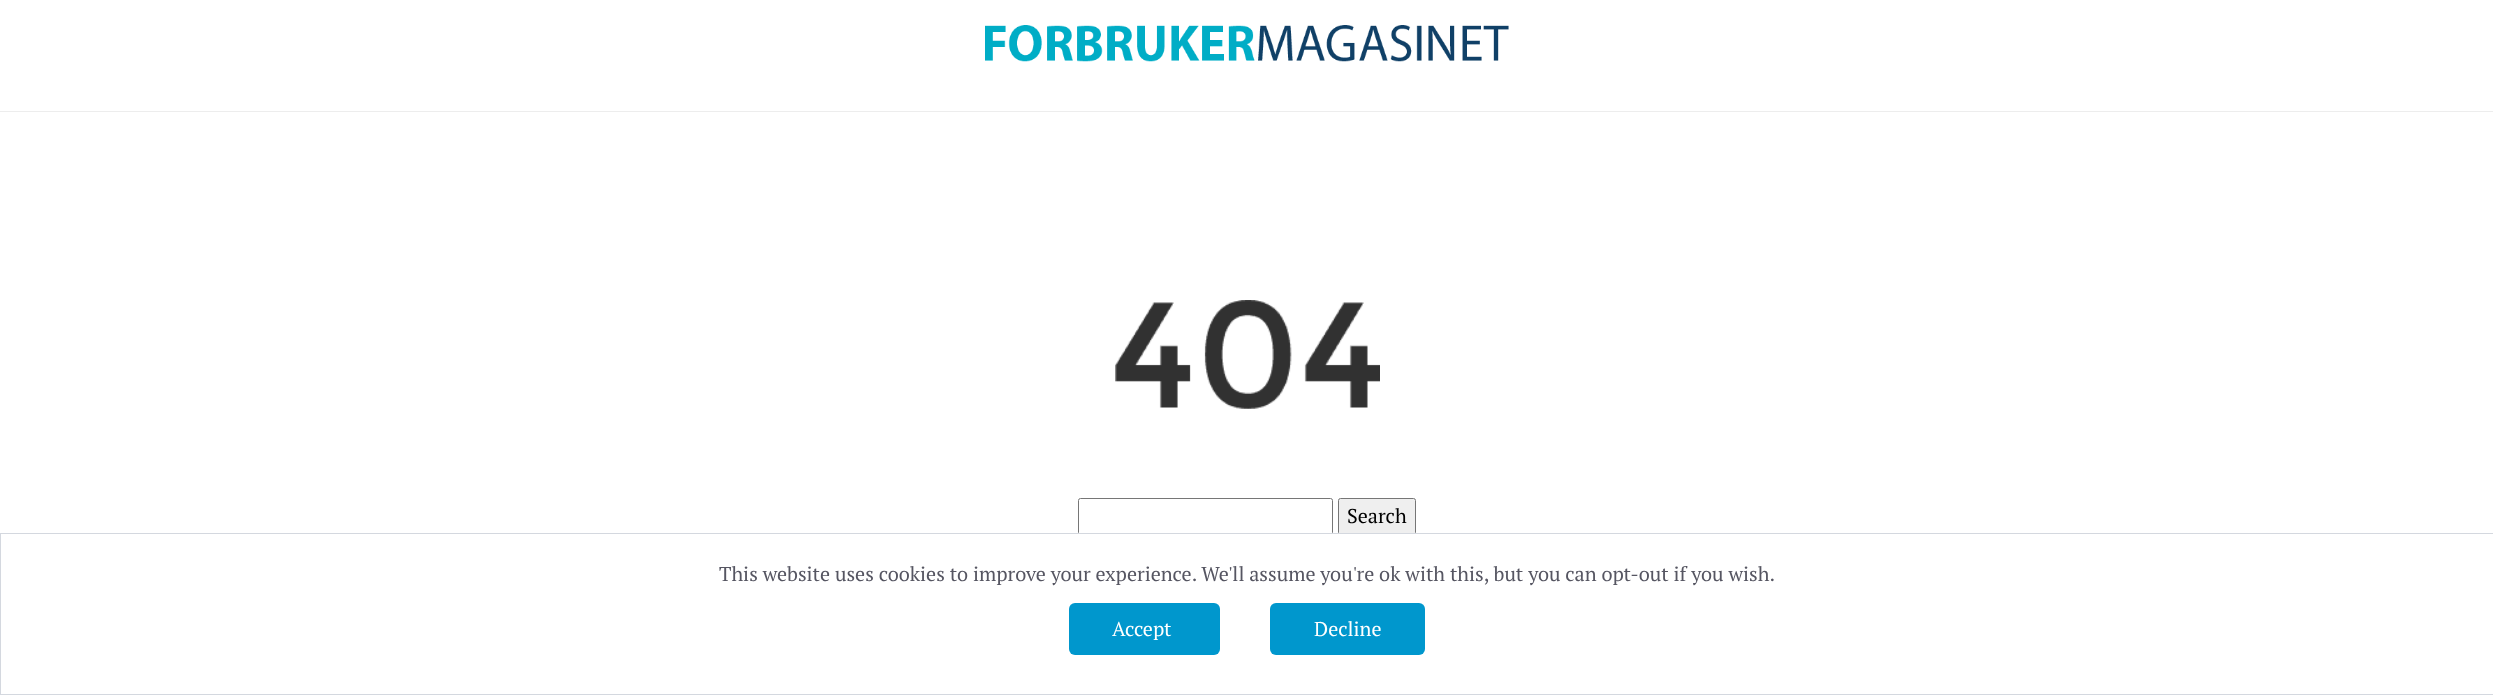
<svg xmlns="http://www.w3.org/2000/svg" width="2493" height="695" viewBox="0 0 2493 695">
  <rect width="100%" height="100%" fill="#ffffff"/>
  <rect x="0" y="111" width="2493" height="1" fill="#ededed"/>
  <image x="985" y="25" width="524" height="37" href="img1.png"/>
  <image x="1115" y="300" width="265" height="109" href="img2.png"/>
  <rect x="1078.5" y="498.5" width="254" height="36" rx="2" fill="none" stroke="#767676"/>
  <rect x="1338.5" y="498.5" width="77" height="36" rx="2" fill="#efefef" stroke="#767676"/>
  <text x="1347" y="523" font-family="PT Serif" font-size="20" fill="#000000">Search</text>
  <rect x="1078" y="534" width="338" height="1" fill="#ffffff"/>
  <rect x="0.5" y="533.5" width="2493" height="161" fill="none" stroke="#d4d8df"/>
  <text x="719" y="581" font-family="PT Serif" font-size="20" fill="#565662">This website uses cookies to improve your experience. We'll assume you're ok with this, but you can opt-out if you wish.</text>
  <rect x="1069" y="603" width="151" height="52" rx="6" fill="#0097cd"/>
  <text x="1112" y="636" font-family="PT Serif" font-size="20" fill="#ffffff">Accept</text>
  <rect x="1270" y="603" width="155" height="52" rx="6" fill="#0097cd"/>
  <text x="1314" y="636" font-family="PT Serif" font-size="20" fill="#ffffff">Decline</text>
</svg>
